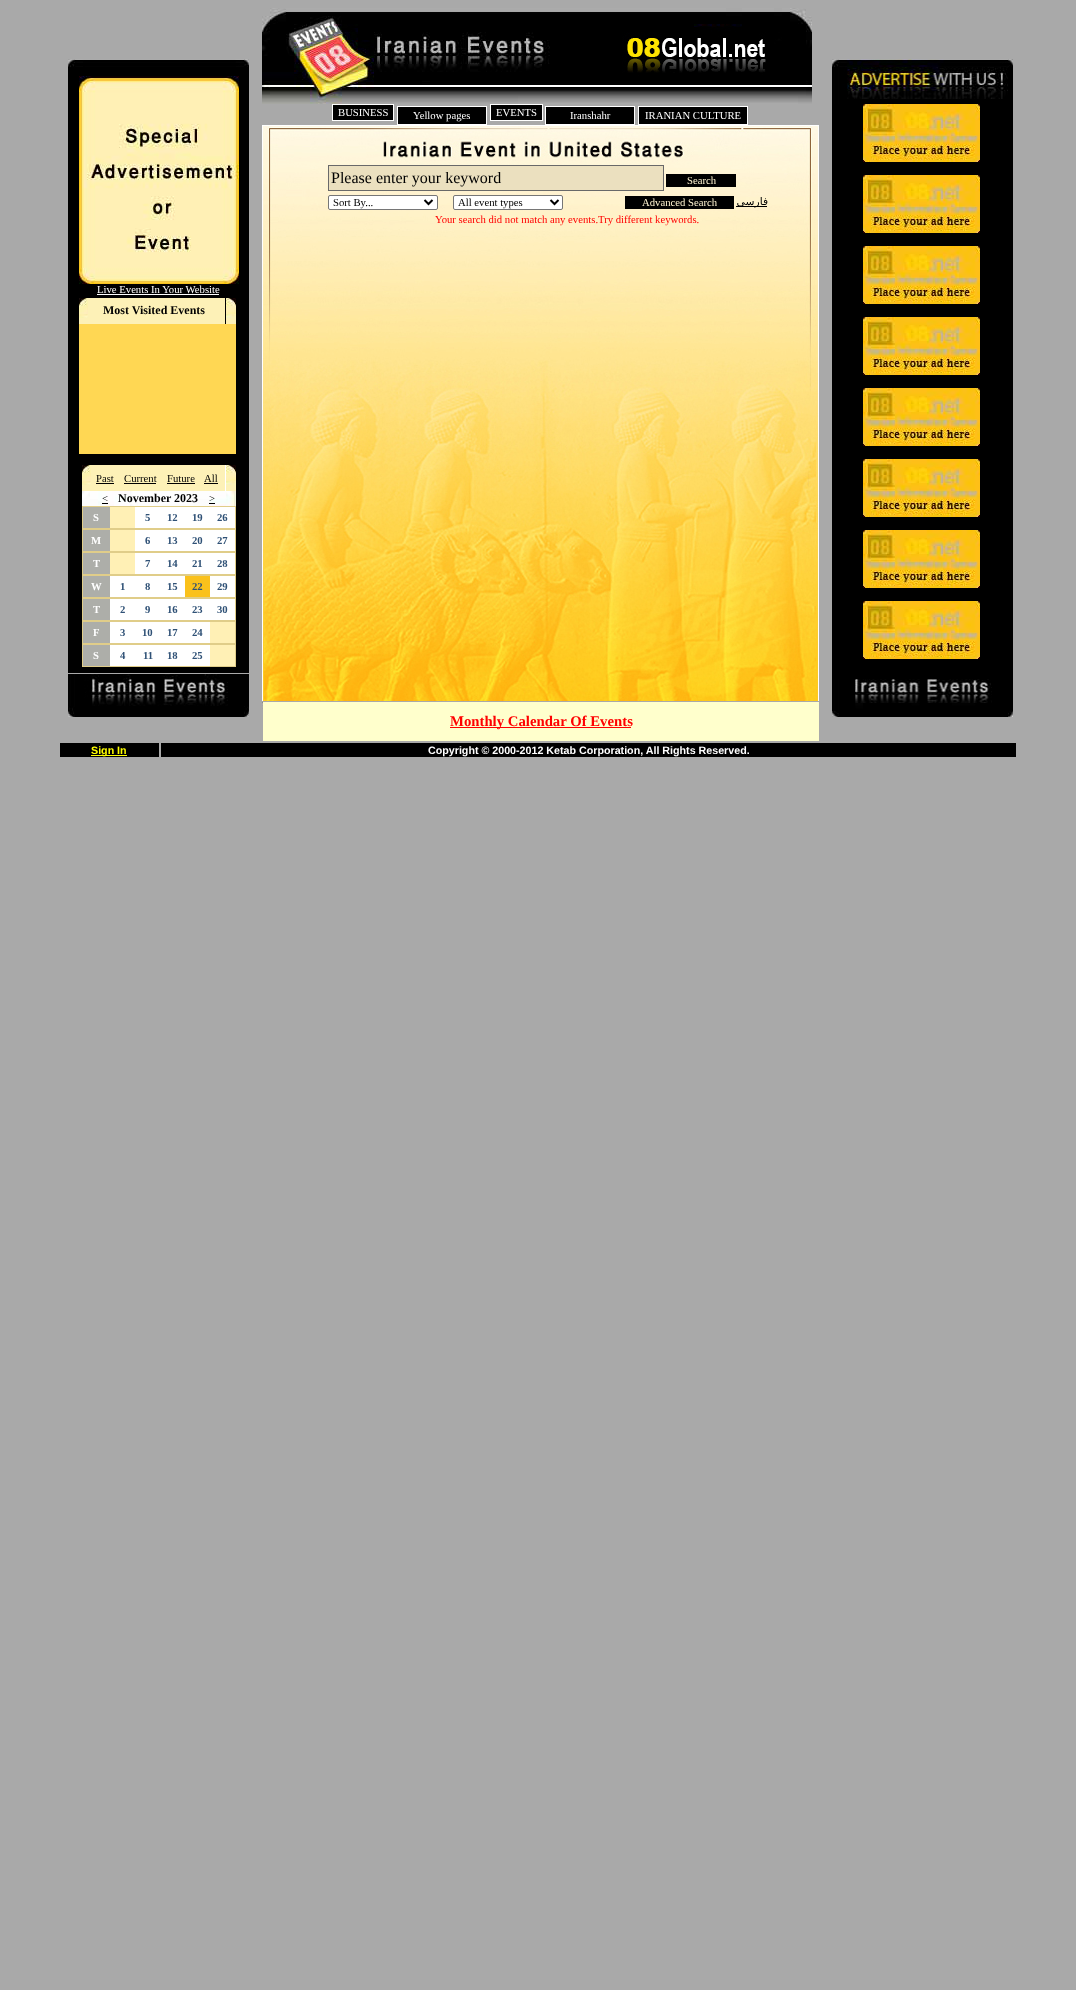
<svg xmlns="http://www.w3.org/2000/svg" width="1076" height="1990" viewBox="0 0 1076 1990">
  <rect width="100%" height="100%" fill="#a9a9a9"/>
  <image x="262" y="8" width="550" height="96" href="img1.png"/>
  <image x="68" y="59" width="181" height="9" href="img2.png"/>
  <image x="832" y="59" width="181" height="45" href="img3.png"/>
  <rect x="68" y="68" width="181" height="8" fill="#000000"/>
  <rect x="68" y="76" width="11" height="208" fill="#000000"/>
  <image x="79" y="76" width="160" height="208" href="img4.png"/>
  <rect x="239" y="76" width="10" height="208" fill="#000000"/>
  <rect x="332.5" y="104.5" width="61" height="16" fill="#000000" stroke="#ffffff"/>
  <text x="338" y="116" font-family="Liberation Serif" font-size="10.7" fill="#ffffff">BUSINESS</text>
  <rect x="397.5" y="106.5" width="89" height="18" fill="#000000" stroke="#ffffff"/>
  <text x="413" y="119" font-family="Liberation Serif" font-size="10.7" fill="#ffffff">Yellow pages</text>
  <rect x="490.5" y="104.5" width="52" height="16" fill="#000000" stroke="#ffffff"/>
  <text x="496" y="116" font-family="Liberation Serif" font-size="10.7" fill="#ffffff">EVENTS</text>
  <rect x="545.5" y="106.5" width="89" height="18" fill="#000000" stroke="#ffffff"/>
  <text x="570" y="119" font-family="Liberation Serif" font-size="10.7" fill="#ffffff">Iranshahr</text>
  <rect x="638.5" y="106.5" width="109" height="18" fill="#000000" stroke="#ffffff"/>
  <text x="645" y="119" font-family="Liberation Serif" font-size="10.7" fill="#ffffff">IRANIAN CULTURE</text>
  <image x="262" y="125" width="557" height="576" href="img5.png"/>
  <rect x="328.5" y="165.5" width="335" height="25" fill="#ebe0bf" stroke="#696969"/>
  <text x="331" y="183" font-family="Liberation Serif" font-size="16" fill="#000000">Please enter your keyword</text>
  <rect x="666" y="174" width="70" height="13" fill="#000000"/>
  <text x="687" y="184" font-family="Liberation Serif" font-size="10.7" fill="#fff4d1">Search</text>
  <rect x="328.5" y="195.5" width="109" height="14" rx="1.5" fill="#ffffff" stroke="#767676"/>
  <path d="M424.5 200L428.5 204L432.5 200" fill="none" stroke="#000000" stroke-width="2"/>
  <text x="333" y="206" font-family="Liberation Serif" font-size="10.7" fill="#000000">Sort By...</text>
  <rect x="453.5" y="195.5" width="109" height="14" rx="1.5" fill="#ffffff" stroke="#767676"/>
  <path d="M550.5 200L554.5 204L558.5 200" fill="none" stroke="#000000" stroke-width="2"/>
  <text x="458" y="206" font-family="Liberation Serif" font-size="10.7" fill="#000000">All event types</text>
  <rect x="625" y="196" width="109" height="13" fill="#000000"/>
  <text x="642" y="206" font-family="Liberation Serif" font-size="10.7" fill="#fff4d1">Advanced Search</text>
  <rect x="736" y="206" width="31" height="1" fill="#000000"/>
  <text x="768" y="205" font-family="DejaVu Sans" font-size="10.7" direction="rtl" fill="#000000">فارسی</text>
  <text x="435" y="223" font-family="Liberation Serif" font-size="10.7" fill="#ff0000">Your search did not match any events.Try different keywords.</text>
  <rect x="832" y="104" width="31" height="58" fill="#000000"/>
  <rect x="980" y="104" width="33" height="58" fill="#000000"/>
  <image x="863" y="104" width="117" height="58" href="img6.png"/>
  <rect x="832" y="162" width="181" height="13" fill="#000000"/>
  <rect x="832" y="175" width="31" height="58" fill="#000000"/>
  <rect x="980" y="175" width="33" height="58" fill="#000000"/>
  <image x="863" y="175" width="117" height="58" href="img6.png"/>
  <rect x="832" y="233" width="181" height="13" fill="#000000"/>
  <rect x="832" y="246" width="31" height="58" fill="#000000"/>
  <rect x="980" y="246" width="33" height="58" fill="#000000"/>
  <image x="863" y="246" width="117" height="58" href="img6.png"/>
  <rect x="832" y="304" width="181" height="13" fill="#000000"/>
  <rect x="832" y="317" width="31" height="58" fill="#000000"/>
  <rect x="980" y="317" width="33" height="58" fill="#000000"/>
  <image x="863" y="317" width="117" height="58" href="img6.png"/>
  <rect x="832" y="375" width="181" height="13" fill="#000000"/>
  <rect x="832" y="388" width="31" height="58" fill="#000000"/>
  <rect x="980" y="388" width="33" height="58" fill="#000000"/>
  <image x="863" y="388" width="117" height="58" href="img6.png"/>
  <rect x="832" y="446" width="181" height="13" fill="#000000"/>
  <rect x="832" y="459" width="31" height="58" fill="#000000"/>
  <rect x="980" y="459" width="33" height="58" fill="#000000"/>
  <image x="863" y="459" width="117" height="58" href="img6.png"/>
  <rect x="832" y="517" width="181" height="13" fill="#000000"/>
  <rect x="832" y="530" width="31" height="58" fill="#000000"/>
  <rect x="980" y="530" width="33" height="58" fill="#000000"/>
  <image x="863" y="530" width="117" height="58" href="img6.png"/>
  <rect x="832" y="588" width="181" height="13" fill="#000000"/>
  <rect x="832" y="601" width="31" height="58" fill="#000000"/>
  <rect x="980" y="601" width="33" height="58" fill="#000000"/>
  <image x="863" y="601" width="117" height="58" href="img6.png"/>
  <rect x="832" y="659" width="181" height="20" fill="#000000"/>
  <rect x="68" y="284" width="181" height="11" fill="#000000"/>
  <text x="97" y="293" font-family="Liberation Serif" font-size="10.7" fill="#ffffff">Live Events In Your Website</text>
  <rect x="97" y="294" width="122" height="1" fill="#ffffff"/>
  <rect x="68" y="295" width="181" height="170" fill="#000000"/>
  <image x="79" y="298" width="9" height="26" href="img7.png"/>
  <rect x="88" y="298" width="137" height="26" fill="#fdf1b7"/>
  <text x="103" y="314" font-family="Liberation Serif" font-size="12" font-weight="bold" fill="#000000">Most Visited Events</text>
  <image x="226" y="298" width="10" height="26" href="img8.png"/>
  <rect x="79" y="324" width="157" height="130" fill="#ffd753"/>
  <rect x="68" y="465" width="14" height="202" fill="#000000"/>
  <rect x="225" y="465" width="1" height="26" fill="#ffffff"/>
  <image x="82" y="465" width="9" height="26" href="img7.png"/>
  <rect x="91" y="465" width="134" height="26" fill="#fdf1b7"/>
  <text x="96" y="482" font-family="Liberation Serif" font-size="10.7" fill="#000000">Past</text>
  <rect x="96" y="483" width="18" height="1" fill="#000000"/>
  <text x="124" y="482" font-family="Liberation Serif" font-size="10.7" fill="#000000">Current</text>
  <rect x="124" y="483" width="32" height="1" fill="#000000"/>
  <text x="167" y="482" font-family="Liberation Serif" font-size="10.7" fill="#000000">Future</text>
  <rect x="167" y="483" width="28" height="1" fill="#000000"/>
  <text x="204" y="482" font-family="Liberation Serif" font-size="10.7" fill="#000000">All</text>
  <rect x="204" y="483" width="14" height="1" fill="#000000"/>
  <image x="226" y="465" width="10" height="26" href="img8.png"/>
  <image x="82" y="491" width="154" height="15" href="img9.png"/>
  <text x="102" y="502" font-family="Liberation Serif" font-size="10.7" fill="#000000">&lt;</text>
  <rect x="102" y="503" width="6" height="1" fill="#000000"/>
  <text x="118" y="502" font-family="Liberation Serif" font-size="12" font-weight="bold" fill="#000000">November 2023</text>
  <text x="209" y="502" font-family="Liberation Serif" font-size="10.7" fill="#000000">&gt;</text>
  <rect x="209" y="503" width="6" height="1" fill="#000000"/>
  <rect x="82" y="506" width="154" height="161" fill="#e0cd89"/>
  <rect x="83" y="507" width="27" height="21" fill="#adaea9"/>
  <text x="93" y="521" font-family="Liberation Serif" font-size="10.7" font-weight="bold" fill="#ffffff">S</text>
  <rect x="110" y="507" width="25" height="21" fill="#fff0b5"/>
  <rect x="135" y="507" width="100" height="21" fill="#ffffff"/>
  <text x="145" y="521" font-family="Liberation Serif" font-size="10.7" font-weight="bold" fill="#2f5176">5</text>
  <text x="167" y="521" font-family="Liberation Serif" font-size="10.7" font-weight="bold" fill="#2f5176">12</text>
  <text x="192" y="521" font-family="Liberation Serif" font-size="10.7" font-weight="bold" fill="#2f5176">19</text>
  <text x="217" y="521" font-family="Liberation Serif" font-size="10.7" font-weight="bold" fill="#2f5176">26</text>
  <rect x="83" y="530" width="27" height="21" fill="#adaea9"/>
  <text x="91" y="544" font-family="Liberation Serif" font-size="10.7" font-weight="bold" fill="#ffffff">M</text>
  <rect x="110" y="530" width="25" height="21" fill="#fff0b5"/>
  <rect x="135" y="530" width="100" height="21" fill="#ffffff"/>
  <text x="145" y="544" font-family="Liberation Serif" font-size="10.7" font-weight="bold" fill="#2f5176">6</text>
  <text x="167" y="544" font-family="Liberation Serif" font-size="10.7" font-weight="bold" fill="#2f5176">13</text>
  <text x="192" y="544" font-family="Liberation Serif" font-size="10.7" font-weight="bold" fill="#2f5176">20</text>
  <text x="217" y="544" font-family="Liberation Serif" font-size="10.7" font-weight="bold" fill="#2f5176">27</text>
  <rect x="83" y="553" width="27" height="21" fill="#adaea9"/>
  <text x="93" y="567" font-family="Liberation Serif" font-size="10.7" font-weight="bold" fill="#ffffff">T</text>
  <rect x="110" y="553" width="25" height="21" fill="#fff0b5"/>
  <rect x="135" y="553" width="100" height="21" fill="#ffffff"/>
  <text x="145" y="567" font-family="Liberation Serif" font-size="10.7" font-weight="bold" fill="#2f5176">7</text>
  <text x="167" y="567" font-family="Liberation Serif" font-size="10.7" font-weight="bold" fill="#2f5176">14</text>
  <text x="192" y="567" font-family="Liberation Serif" font-size="10.7" font-weight="bold" fill="#2f5176">21</text>
  <text x="217" y="567" font-family="Liberation Serif" font-size="10.7" font-weight="bold" fill="#2f5176">28</text>
  <rect x="83" y="576" width="27" height="21" fill="#adaea9"/>
  <text x="91" y="590" font-family="Liberation Serif" font-size="10.7" font-weight="bold" fill="#ffffff">W</text>
  <rect x="110" y="576" width="75" height="21" fill="#ffffff"/>
  <text x="120" y="590" font-family="Liberation Serif" font-size="10.7" font-weight="bold" fill="#2f5176">1</text>
  <text x="145" y="590" font-family="Liberation Serif" font-size="10.7" font-weight="bold" fill="#2f5176">8</text>
  <text x="167" y="590" font-family="Liberation Serif" font-size="10.7" font-weight="bold" fill="#2f5176">15</text>
  <rect x="185" y="576" width="25" height="21" fill="#fac11b"/>
  <text x="192" y="590" font-family="Liberation Serif" font-size="10.7" font-weight="bold" fill="#2f5176">22</text>
  <rect x="210" y="576" width="25" height="21" fill="#ffffff"/>
  <text x="217" y="590" font-family="Liberation Serif" font-size="10.7" font-weight="bold" fill="#2f5176">29</text>
  <rect x="83" y="599" width="27" height="21" fill="#adaea9"/>
  <text x="93" y="613" font-family="Liberation Serif" font-size="10.7" font-weight="bold" fill="#ffffff">T</text>
  <rect x="110" y="599" width="125" height="21" fill="#ffffff"/>
  <text x="120" y="613" font-family="Liberation Serif" font-size="10.7" font-weight="bold" fill="#2f5176">2</text>
  <text x="145" y="613" font-family="Liberation Serif" font-size="10.7" font-weight="bold" fill="#2f5176">9</text>
  <text x="167" y="613" font-family="Liberation Serif" font-size="10.7" font-weight="bold" fill="#2f5176">16</text>
  <text x="192" y="613" font-family="Liberation Serif" font-size="10.7" font-weight="bold" fill="#2f5176">23</text>
  <text x="217" y="613" font-family="Liberation Serif" font-size="10.7" font-weight="bold" fill="#2f5176">30</text>
  <rect x="83" y="622" width="27" height="21" fill="#adaea9"/>
  <text x="93" y="636" font-family="Liberation Serif" font-size="10.7" font-weight="bold" fill="#ffffff">F</text>
  <rect x="110" y="622" width="100" height="21" fill="#ffffff"/>
  <text x="120" y="636" font-family="Liberation Serif" font-size="10.7" font-weight="bold" fill="#2f5176">3</text>
  <text x="142" y="636" font-family="Liberation Serif" font-size="10.7" font-weight="bold" fill="#2f5176">10</text>
  <text x="167" y="636" font-family="Liberation Serif" font-size="10.7" font-weight="bold" fill="#2f5176">17</text>
  <text x="192" y="636" font-family="Liberation Serif" font-size="10.7" font-weight="bold" fill="#2f5176">24</text>
  <rect x="210" y="622" width="25" height="21" fill="#fff0b5"/>
  <rect x="83" y="645" width="27" height="21" fill="#adaea9"/>
  <text x="93" y="659" font-family="Liberation Serif" font-size="10.7" font-weight="bold" fill="#ffffff">S</text>
  <rect x="110" y="645" width="100" height="21" fill="#ffffff"/>
  <text x="120" y="659" font-family="Liberation Serif" font-size="10.7" font-weight="bold" fill="#2f5176">4</text>
  <text x="143" y="659" font-family="Liberation Serif" font-size="10.7" font-weight="bold" fill="#2f5176">11</text>
  <text x="167" y="659" font-family="Liberation Serif" font-size="10.7" font-weight="bold" fill="#2f5176">18</text>
  <text x="192" y="659" font-family="Liberation Serif" font-size="10.7" font-weight="bold" fill="#2f5176">25</text>
  <rect x="210" y="645" width="25" height="21" fill="#fff0b5"/>
  <rect x="236" y="465" width="13" height="202" fill="#000000"/>
  <rect x="68" y="667" width="181" height="6" fill="#000000"/>
  <image x="68" y="674" width="181" height="43" href="img10.png"/>
  <image x="832" y="679" width="181" height="38" href="img11.png"/>
  <image x="262" y="702" width="1" height="7" href="img12.png"/>
  <rect x="263" y="702" width="556" height="39" fill="#ffffcc"/>
  <rect x="450" y="727" width="181" height="1" fill="#ff0000"/>
  <text x="450" y="726" font-family="Liberation Serif" font-size="14.75" font-weight="bold" fill="#ff0000">Monthly Calendar Of Events</text>
  <rect x="60" y="743" width="99" height="14" fill="#000000"/>
  <rect x="91" y="755" width="36" height="1" fill="#ffff00"/>
  <text x="91" y="754" font-family="Liberation Sans" font-size="10.7" font-weight="bold" fill="#ffff00">Sign In</text>
  <rect x="161" y="743" width="855" height="14" fill="#000000"/>
  <text x="428" y="754" font-family="Liberation Sans" font-size="10.7" font-weight="bold" fill="#ffffff">Copyright © 2000-2012 Ketab Corporation, All Rights Reserved.</text>
</svg>
